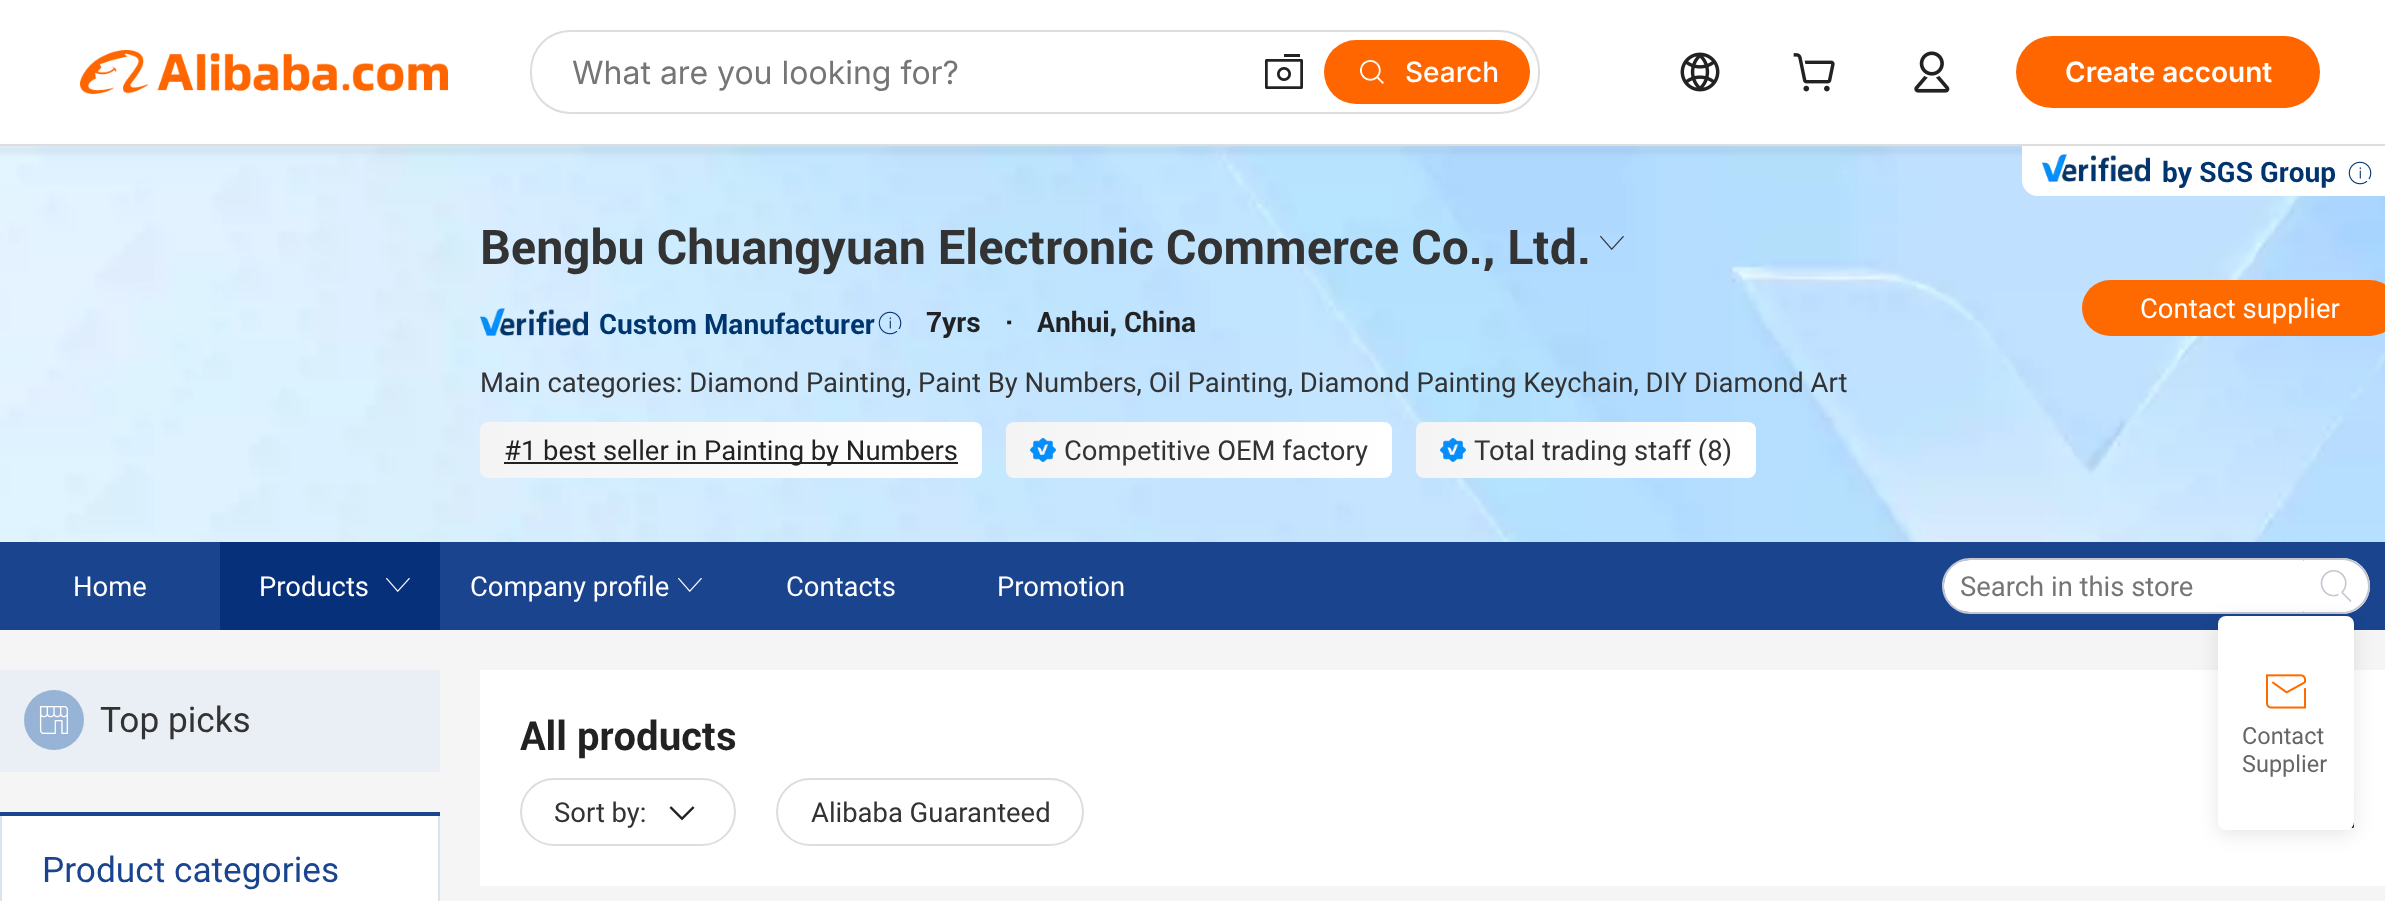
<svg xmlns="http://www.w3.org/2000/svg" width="2385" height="901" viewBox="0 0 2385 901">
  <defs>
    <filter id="blur1" x="-50%" y="-200%" width="200%" height="500%"><feGaussianBlur stdDeviation="2"/></filter>
    <linearGradient id="g1" gradientUnits="userSpaceOnUse" x1="982" y1="450" x2="480" y2="450"><stop offset="0" stop-color="#ffffff"/><stop offset="1" stop-color="#f4f4f4"/></linearGradient>
    <linearGradient id="g2" gradientUnits="userSpaceOnUse" x1="1392" y1="450" x2="1006" y2="450"><stop offset="0" stop-color="#ffffff"/><stop offset="1" stop-color="#f4f4f4"/></linearGradient>
    <linearGradient id="g3" gradientUnits="userSpaceOnUse" x1="1756" y1="450" x2="1416" y2="450"><stop offset="0" stop-color="#ffffff"/><stop offset="1" stop-color="#f4f4f4"/></linearGradient>
    <filter id="blur2" x="-50%" y="-200%" width="200%" height="500%"><feGaussianBlur stdDeviation="10"/></filter>
  </defs>
  <rect width="100%" height="100%" fill="#ffffff"/>
  <image x="0" y="146" width="2385" height="396" href="img7.png"/>
  <rect x="-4" y="146" width="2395" height="8" fill="#000000" fill-opacity="0.05" filter="url(#blur1)"/>
  <rect x="0" y="144" width="2385" height="2" fill="#dddddd"/>
  <image x="80" y="50" width="368" height="44" href="img1.png"/>
  <rect x="530" y="30" width="1010" height="84" rx="40" fill="#dddddd"/>
  <rect x="532" y="32" width="1006" height="80" rx="38" fill="#ffffff"/>
  <text x="572" y="84" font-family="Inter" font-size="32" fill="#757575">What are you looking for?</text>
  <image x="1265" y="54" width="38" height="35" href="img2.png"/>
  <rect x="1324" y="40" width="206" height="64" rx="32" fill="#ff6600"/>
  <image x="1360" y="60" width="24" height="24" href="img3.png"/>
  <text x="1405" y="82" font-family="Inter" font-size="28" font-weight="500" fill="#ffffff">Search</text>
  <image x="1680" y="52" width="40" height="40" href="img4.png"/>
  <image x="1793" y="53" width="42" height="39" href="img5.png"/>
  <image x="1914" y="51" width="36" height="42" href="img6.png"/>
  <rect x="2016" y="36" width="304" height="72" rx="36" fill="#ff6600"/>
  <text x="2065" y="82" font-family="Inter" font-size="28" font-weight="600" fill="#ffffff">Create account</text>
  <path d="M2022 146H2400V180C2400 189 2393 196 2384 196H2038C2029 196 2022 189 2022 180Z" fill="#ffffff"/>
  <image x="2042" y="154" width="108" height="28" href="img8.png"/>
  <text x="2162" y="182" font-family="Roboto" font-size="28" font-weight="bold" fill="#00346e">by SGS Group</text>
  <image x="2348" y="161" width="24" height="24" href="img9.png"/>
  <text x="480" y="264" font-family="Roboto" font-size="48" font-weight="bold" fill="#333333">Bengbu Chuangyuan Electronic Commerce Co., Ltd.</text>
  <image x="1600" y="235" width="24" height="15" href="img10.png"/>
  <image x="480" y="308" width="108" height="28" href="img11.png"/>
  <text x="599" y="334" font-family="Roboto" font-size="28" font-weight="bold" fill="#00346e">Custom Manufacturer</text>
  <image x="878" y="311" width="24" height="24" href="img12.png"/>
  <text x="926" y="332" font-family="Roboto" font-size="28" font-weight="bold" fill="#222222">7yrs</text>
  <text x="1005" y="332" font-family="Roboto" font-size="28" font-weight="bold" fill="#222222">·</text>
  <text x="1037" y="332" font-family="Roboto" font-size="28" font-weight="bold" fill="#222222">Anhui, China</text>
  <text x="480" y="392" font-family="Roboto" font-size="28" fill="#333333">Main categories: Diamond Painting, Paint By Numbers, Oil Painting, Diamond Painting Keychain, DIY Diamond Art</text>
  <rect x="480" y="422" width="502" height="56" rx="8" fill="url(#g1)"/>
  <rect x="504" y="462" width="454" height="2" fill="#222222"/>
  <text x="504" y="460" font-family="Roboto" font-size="28" fill="#222222">#1 best seller in Painting by Numbers</text>
  <rect x="1006" y="422" width="386" height="56" rx="8" fill="url(#g2)"/>
  <image x="1030" y="438" width="26" height="24" href="img13.png"/>
  <text x="1064" y="460" font-family="Roboto" font-size="28" fill="#333333">Competitive OEM factory</text>
  <rect x="1416" y="422" width="340" height="56" rx="8" fill="url(#g3)"/>
  <image x="1440" y="438" width="26" height="24" href="img14.png"/>
  <text x="1474" y="460" font-family="Roboto" font-size="28" fill="#333333">Total trading staff (8)</text>
  <rect x="2082" y="280" width="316" height="56" rx="28" fill="#ff6a00"/>
  <text x="2140" y="318" font-family="Roboto" font-size="28" fill="#ffffff">Contact supplier</text>
  <rect x="0" y="542" width="2385" height="88" fill="#1a448e"/>
  <text x="73" y="596" font-family="Roboto" font-size="28" fill="#ffffff">Home</text>
  <rect x="220" y="542" width="220" height="88" fill="#06307a"/>
  <text x="259" y="596" font-family="Roboto" font-size="28" fill="#ffffff">Products</text>
  <image x="386" y="577" width="24" height="15" href="img15.png"/>
  <text x="470" y="596" font-family="Roboto" font-size="28" fill="#ffffff">Company profile</text>
  <image x="678" y="577" width="24" height="15" href="img16.png"/>
  <text x="786" y="596" font-family="Roboto" font-size="28" fill="#ffffff">Contacts</text>
  <text x="997" y="596" font-family="Roboto" font-size="28" fill="#ffffff">Promotion</text>
  <path d="M1970 558H2304V614H1970C1955 614 1942 601 1942 586C1942 571 1955 558 1970 558ZM1970 560H2304V612H1970C1956 612 1944 600 1944 586C1944 572 1956 560 1970 560Z" fill="#c4c6cf" fill-rule="evenodd"/>
  <path d="M1970 560H2303C2303.5 560 2304 560.5 2304 561V611C2304 611.5 2303.5 612 2303 612H1970C1955.5 612 1944 600.5 1944 586C1944 571.5 1955.5 560 1970 560Z" fill="#ffffff"/>
  <text x="1960" y="596" font-family="Roboto" font-size="28" fill="#757575">Search in this store</text>
  <path d="M2304 558H2342C2357.5 558 2370 570.5 2370 586C2370 601.5 2357.5 614 2342 614H2304Z" fill="#ffffff"/>
  <path d="M2304 558H2342C2357 558 2370 571 2370 586C2370 601 2357 614 2342 614H2304ZM2304 560H2342C2356 560 2368 572 2368 586C2368 600 2356 612 2342 612H2304Z" fill="#c4c6cf" fill-rule="evenodd"/>
  <image x="2320" y="570" width="32" height="32" href="img17.png"/>
  <rect x="0" y="630" width="2385" height="271" fill="#f5f5f5"/>
  <rect x="0" y="670" width="440" height="102" fill="#e9eff5"/>
  <circle cx="54" cy="720" r="30" fill="#97b3d5"/>
  <image x="39" y="706" width="29" height="28" href="img18.png"/>
  <text x="100" y="732" font-family="Roboto" font-size="36" fill="#333333">Top picks</text>
  <rect x="2" y="816" width="436" height="85" fill="#ffffff"/>
  <rect x="0" y="812" width="440" height="4" fill="#1a448e"/>
  <rect x="438" y="816" width="2" height="85" fill="#dbe3ef"/>
  <rect x="0" y="816" width="2" height="85" fill="#dbe3ef"/>
  <text x="42" y="882" font-family="Roboto" font-size="36" fill="#1a448e">Product categories</text>
  <rect x="480" y="670" width="1905" height="216" fill="#ffffff"/>
  <text x="520" y="750" font-family="Roboto" font-size="40" font-weight="bold" fill="#222222">All products</text>
  <rect x="521" y="779" width="214" height="66" rx="33" fill="none" stroke="#dddddd" stroke-width="2"/>
  <text x="554" y="822" font-family="Roboto" font-size="28" fill="#333333">Sort by:</text>
  <image x="669" y="806" width="26" height="15" href="img19.png"/>
  <rect x="777" y="779" width="306" height="66" rx="33" fill="none" stroke="#dddddd" stroke-width="2"/>
  <text x="811" y="822" font-family="Roboto" font-size="28" fill="#333333">Alibaba Guaranteed</text>
  <image x="2351" y="790" width="5" height="38" href="img20.png"/>
  <rect x="2218" y="620" width="136" height="214" rx="8" fill="#000000" fill-opacity="0.1" filter="url(#blur2)"/>
  <rect x="2218" y="616" width="136" height="214" rx="8" fill="#ffffff"/>
  <image x="2266" y="674" width="40" height="35" href="img21.png"/>
  <text x="2242" y="744" font-family="Roboto" font-size="24" fill="#666666">Contact</text>
  <text x="2242" y="772" font-family="Roboto" font-size="24" fill="#666666">Supplier</text>
</svg>
